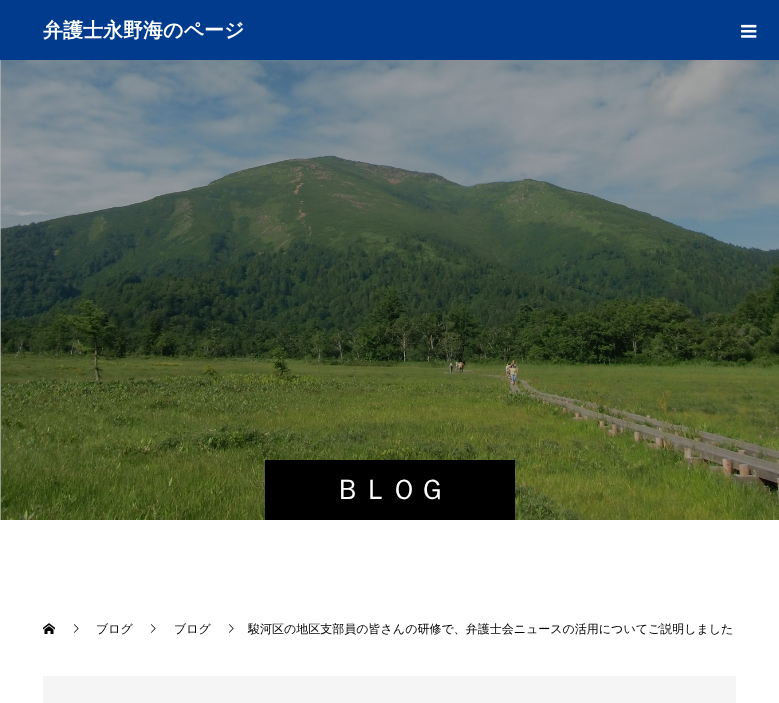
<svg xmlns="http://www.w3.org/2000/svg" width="779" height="703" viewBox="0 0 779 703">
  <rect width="100%" height="100%" fill="#ffffff"/>
  <rect x="0" y="60" width="1" height="460" fill="#b3b3b3"/>
  <rect x="0" y="0" width="779" height="60" fill="#003b8e"/>
  <text x="43" y="37" font-family="WenQuanYi Zen Hei" font-size="20" font-weight="bold" fill="#ffffff">弁護士永野海のページ</text>
  <image x="741" y="24" width="16" height="14" href="img1.png"/>
  <image x="0" y="60" width="779" height="460" href="img2.png"/>
  <rect x="265" y="460" width="250" height="60" fill="#000000"/>
  <text x="334" y="499" font-family="WenQuanYi Zen Hei" font-size="28" font-weight="500" fill="#ffffff">ＢＬＯＧ</text>
  <image x="43" y="623" width="12" height="11" href="img3.png"/>
  <image x="74" y="624" width="5" height="9" href="img4.png"/>
  <text x="96" y="633" font-family="WenQuanYi Zen Hei" font-size="12" font-weight="500" fill="#000000">ブログ</text>
  <image x="151" y="624" width="5" height="9" href="img4.png"/>
  <text x="174" y="633" font-family="WenQuanYi Zen Hei" font-size="12" font-weight="500" fill="#000000">ブログ</text>
  <image x="229" y="624" width="5" height="9" href="img4.png"/>
  <text x="248" y="633" font-family="WenQuanYi Zen Hei" font-size="12" font-weight="500" fill="#000000">駿河区の地区支部員の皆さんの研修で、弁護士会ニュースの活用についてご説明しました</text>
  <rect x="43" y="676" width="693" height="27" fill="#f5f5f5"/>
</svg>
